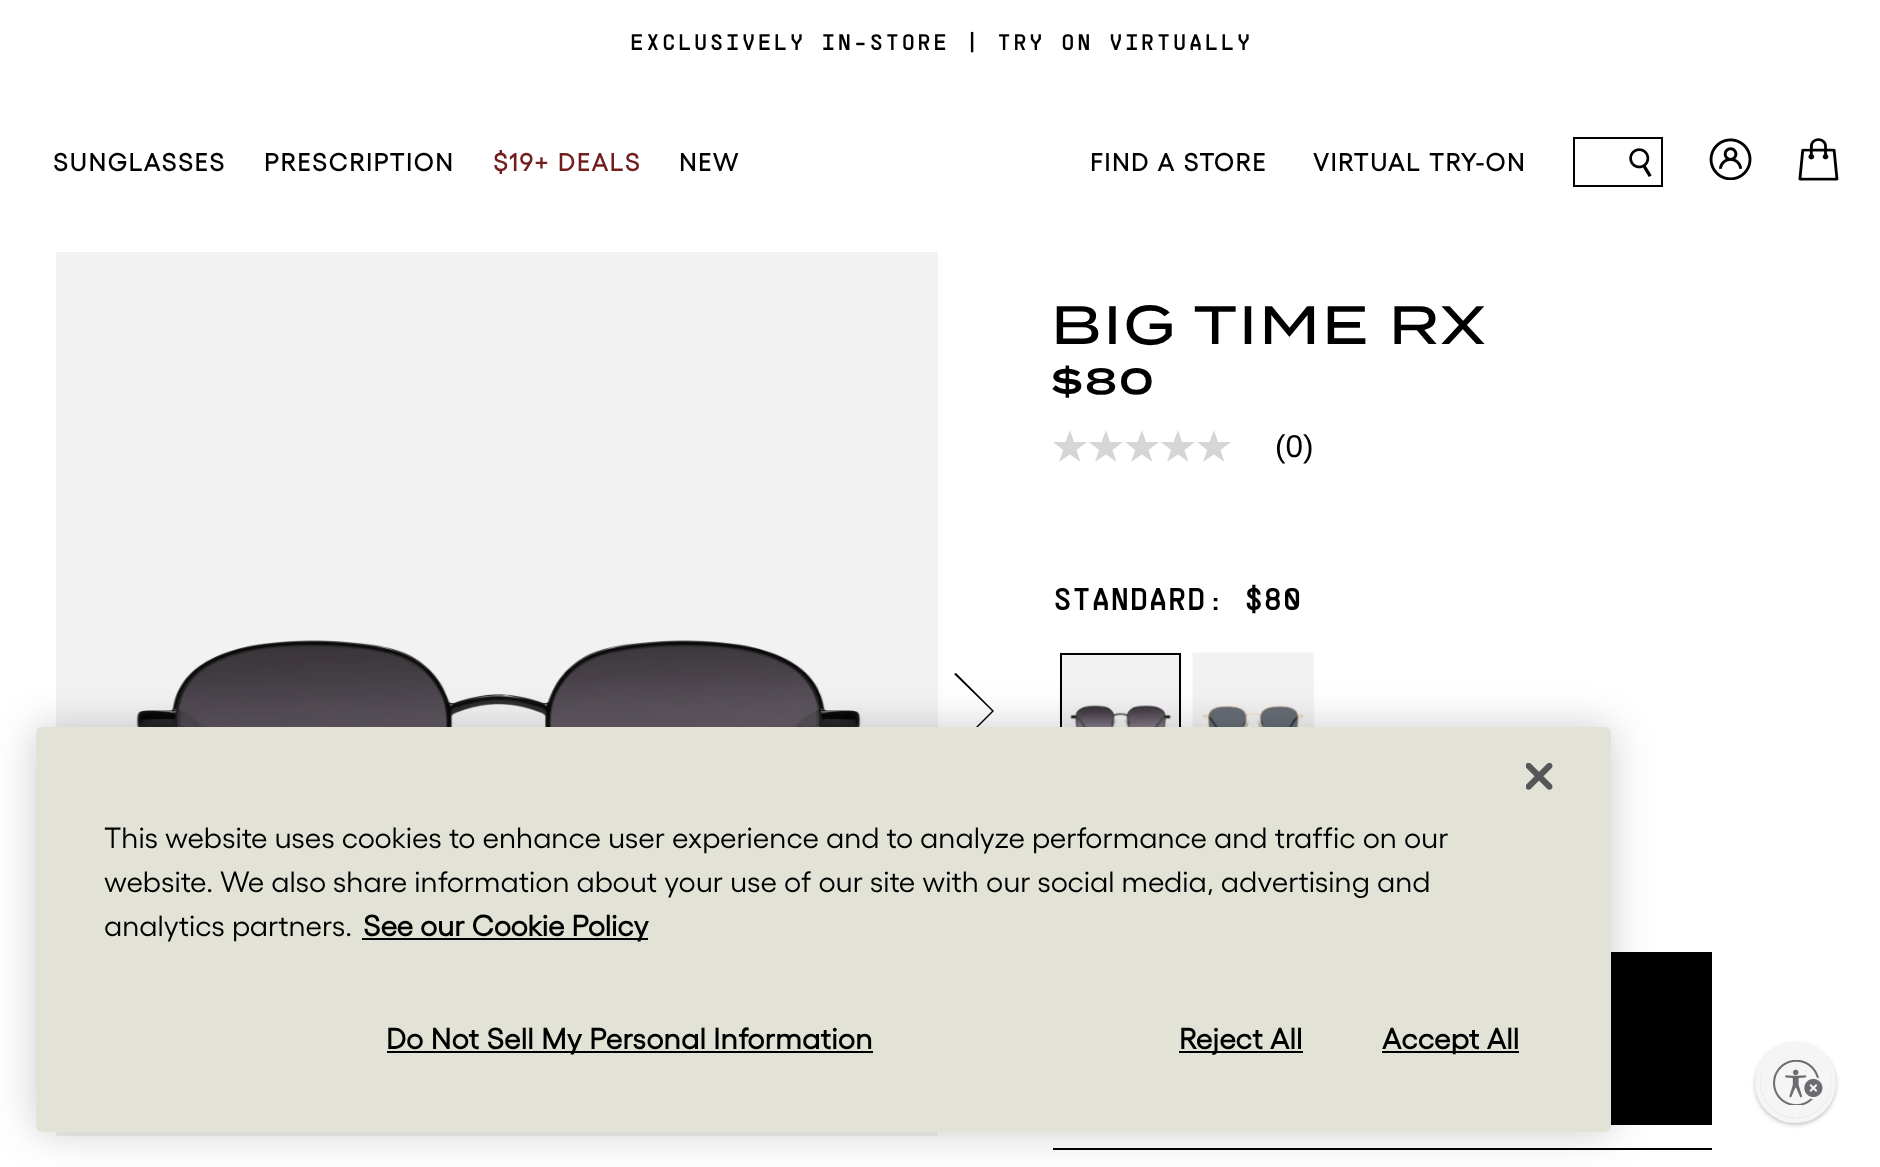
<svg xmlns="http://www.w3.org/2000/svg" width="1880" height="1167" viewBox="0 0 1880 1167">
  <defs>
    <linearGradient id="g1" gradientUnits="userSpaceOnUse" x1="1053" y1="430" x2="1087" y2="430"><stop offset="0" stop-color="#000000"/><stop offset="0.01" stop-color="#d5d6d5"/></linearGradient>
    <linearGradient id="g2" gradientUnits="userSpaceOnUse" x1="1089" y1="430" x2="1123" y2="430"><stop offset="0" stop-color="#000000"/><stop offset="0.01" stop-color="#d5d6d5"/></linearGradient>
    <linearGradient id="g3" gradientUnits="userSpaceOnUse" x1="1125" y1="430" x2="1159" y2="430"><stop offset="0" stop-color="#000000"/><stop offset="0.01" stop-color="#d5d6d5"/></linearGradient>
    <linearGradient id="g4" gradientUnits="userSpaceOnUse" x1="1161" y1="430" x2="1195" y2="430"><stop offset="0" stop-color="#000000"/><stop offset="0.01" stop-color="#d5d6d5"/></linearGradient>
    <linearGradient id="g5" gradientUnits="userSpaceOnUse" x1="1197" y1="430" x2="1231" y2="430"><stop offset="0" stop-color="#000000"/><stop offset="0.01" stop-color="#d5d6d5"/></linearGradient>
    <clipPath id="clip1"><rect x="56" y="252" width="885" height="884"/></clipPath>
    <filter id="blur1" x="-50%" y="-200%" width="200%" height="500%"><feGaussianBlur stdDeviation="20"/></filter>
    <filter id="blur2" x="-50%" y="-200%" width="200%" height="500%"><feGaussianBlur stdDeviation="2"/></filter>
    <clipPath id="clip2"><rect x="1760" y="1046" width="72" height="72" rx="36"/></clipPath>
  </defs>
  <rect width="100%" height="100%" fill="#ffffff"/>
  <text x="630" y="50" font-family="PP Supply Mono" font-size="22.6" font-weight="500" letter-spacing="2.25" fill="#000000">EXCLUSIVELY IN-STORE | TRY ON VIRTUALLY</text>
  <text x="53" y="171" font-family="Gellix" font-size="24.75" font-weight="bold" letter-spacing="1.8" fill="#000000">SUNGLASSES</text>
  <text x="264" y="171" font-family="Gellix" font-size="24.75" font-weight="bold" letter-spacing="1.8" fill="#000000">PRESCRIPTION</text>
  <text x="493" y="171" font-family="Gellix" font-size="24.75" font-weight="bold" letter-spacing="1.8" fill="#721e1e">$19+ DEALS</text>
  <text x="679" y="171" font-family="Gellix" font-size="24.75" font-weight="bold" letter-spacing="1.8" fill="#000000">NEW</text>
  <text x="1090" y="171" font-family="Gellix" font-size="24.75" font-weight="bold" letter-spacing="1.8" fill="#000000">FIND A STORE</text>
  <text x="1313" y="171" font-family="Gellix" font-size="24.75" font-weight="bold" letter-spacing="1.8" fill="#000000">VIRTUAL TRY-ON</text>
  <rect x="1574" y="138" width="88" height="48" fill="none" stroke="#000000" stroke-width="2"/>
  <image x="1629" y="148" width="23" height="29" href="img1.png"/>
  <image x="1709" y="138" width="43" height="42" href="img2.png"/>
  <image x="1798" y="138" width="41" height="43" href="img3.png"/>
  <image x="56" y="252" width="885" height="884" href="img4.png"/>
  <path d="M1087 442H1074L1070 430L1065.5 442H1053L1063 450L1059 462L1070 454.5L1080.5 462L1076.5 450Z" fill="url(#g1)"/>
  <path d="M1123 442H1110L1106 430L1101.5 442H1089L1099 450L1095 462L1106 454.5L1116.5 462L1112.5 450Z" fill="url(#g2)"/>
  <path d="M1159 442H1146L1142 430L1137.5 442H1125L1135 450L1131 462L1142 454.5L1152.5 462L1148.5 450Z" fill="url(#g3)"/>
  <path d="M1195 442H1182L1178 430L1173.5 442H1161L1171 450L1167 462L1178 454.5L1188.5 462L1184.5 450Z" fill="url(#g4)"/>
  <path d="M1231 442H1218L1214 430L1209.5 442H1197L1207 450L1203 462L1214 454.5L1224.5 462L1220.5 450Z" fill="url(#g5)"/>
  <image x="1059" y="652" width="123" height="75" href="img5.png"/>
  <rect x="1061" y="654" width="119" height="119" fill="none" stroke="#000000" stroke-width="2"/>
  <image x="1192" y="652" width="123" height="75" href="img6.png"/>
  <rect x="1611" y="952" width="101" height="173" fill="#000000"/>
  <g clip-path="url(#clip1)">
    <rect x="939" y="251" width="887" height="887" fill="none" stroke="#ffffff" stroke-width="2"/>
  </g>
  <path d="M994 711L956 673L954 674L992 711L954 749L955 750Z" fill="#000000"/>
  <text x="1051" y="344" font-family="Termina" font-size="54" font-weight="500" letter-spacing="2.25" fill="#000000">BIG TIME RX</text>
  <text x="1051" y="394" font-family="Termina" font-size="36" font-weight="600" letter-spacing="2.25" fill="#000000">$80</text>
  <text x="1275" y="457" font-family="Liberation Sans" font-size="31.5" fill="#000000">(0)</text>
  <text x="1053" y="610" font-family="PP Supply Mono" font-size="31.5" font-weight="500" fill="#000000">STANDARD: $80</text>
  <rect x="1053" y="1148" width="659" height="2" fill="#000000"/>
  <rect x="36" y="727" width="1575" height="405" rx="6" fill="#000000" fill-opacity="0.2" filter="url(#blur1)"/>
  <rect x="36" y="727" width="1575" height="405" rx="6" fill="#e3e2d7"/>
  <image x="1526" y="763" width="27" height="27" href="img7.png"/>
  <text x="104" y="848" font-family="Gellix" font-size="29.25" fill="#000000">This website uses cookies to enhance user experience and to analyze performance and traffic on our</text>
  <text x="104" y="892" font-family="Gellix" font-size="29.25" fill="#000000">website. We also share information about your use of our site with our social media, advertising and</text>
  <text x="104" y="936" font-family="Gellix" font-size="29.25" fill="#000000">analytics partners.</text>
  <rect x="362" y="938" width="286" height="2" fill="#000000"/>
  <text x="363" y="936" font-family="Gellix" font-size="29.25" font-weight="bold" fill="#000000">See our Cookie Policy</text>
  <rect x="387" y="1051" width="486" height="2" fill="#000000"/>
  <text x="386" y="1049" font-family="Gellix" font-size="29.25" font-weight="bold" letter-spacing="0.3" fill="#000000">Do Not Sell My Personal Information</text>
  <rect x="1179" y="1051" width="124" height="2" fill="#000000"/>
  <text x="1179" y="1049" font-family="Gellix" font-size="29.25" font-weight="bold" letter-spacing="0.3" fill="#000000">Reject All</text>
  <rect x="1382" y="1051" width="137" height="2" fill="#000000"/>
  <text x="1382" y="1049" font-family="Gellix" font-size="29.25" font-weight="bold" letter-spacing="0.3" fill="#000000">Accept All</text>
  <rect x="1755" y="1044" width="81" height="81" rx="40.5" fill="#000000" fill-opacity="0.24" filter="url(#blur2)"/>
  <circle cx="1795.5" cy="1082.5" r="38" fill="#ebebf0" stroke="#f5f5f5" stroke-width="5"/>
  <g clip-path="url(#clip2)">
    <rect x="1760" y="1049" width="72" height="72" rx="36" fill="#000000" fill-opacity="0.24" filter="url(#blur2)"/>
  </g>
  <circle cx="1796" cy="1082" r="36" fill="#f5f5f5"/>
  <image x="1773" y="1060" width="50" height="45" href="img8.png"/>
</svg>
